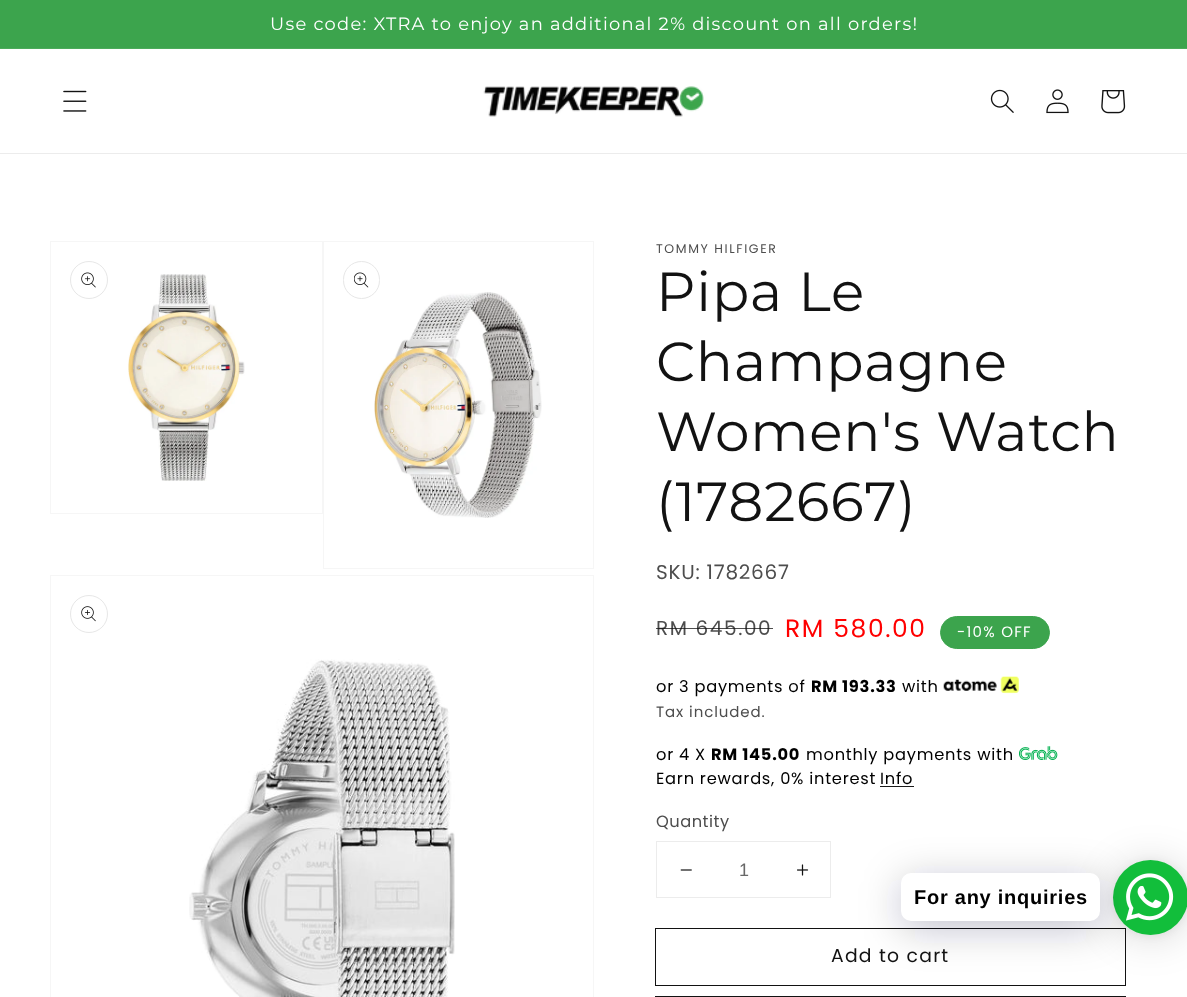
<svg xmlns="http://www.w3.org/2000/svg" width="1187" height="997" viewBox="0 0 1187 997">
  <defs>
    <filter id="blur1" x="-50%" y="-200%" width="200%" height="500%"><feGaussianBlur stdDeviation="20"/></filter>
    <filter id="blur2" x="-50%" y="-200%" width="200%" height="500%"><feGaussianBlur stdDeviation="4"/></filter>
  </defs>
  <rect width="100%" height="100%" fill="#ffffff"/>
  <rect x="0" y="0" width="1187" height="48" fill="#3ca44d"/>
  <rect x="0" y="48" width="1187" height="1" fill="#4cab5b"/>
  <text x="270" y="30" font-family="Montserrat" font-size="17.9" font-weight="100" letter-spacing="1.25" fill="#ffffff">Use code: XTRA to enjoy an additional 2% discount on all orders!</text>
  <rect x="0" y="153" width="1187" height="1" fill="#ececec"/>
  <image x="63" y="90" width="24" height="22" href="img1.png"/>
  <image x="483" y="86" width="221" height="31" href="img2.png"/>
  <image x="990" y="89" width="24" height="24" href="img3.png"/>
  <image x="1046" y="89" width="23" height="25" href="img4.png"/>
  <image x="1101" y="90" width="25" height="24" href="img5.png"/>
  <rect x="50.5" y="241.5" width="272" height="272" fill="none" stroke="#f6f6f6"/>
  <circle cx="89" cy="280" r="18.5" fill="none" stroke="#e7e7e7"/>
  <image x="81" y="272" width="15" height="16" href="img6.png"/>
  <image x="128" y="274" width="117" height="207" href="img7.png"/>
  <rect x="323.5" y="241.5" width="270" height="327" fill="none" stroke="#f6f6f6"/>
  <image x="374" y="292" width="168" height="226" href="img9.png"/>
  <rect x="343.5" y="261.5" width="36" height="37" rx="18" fill="none" stroke="#e7e7e7"/>
  <image x="354" y="272" width="15" height="16" href="img8.png"/>
  <rect x="50.5" y="575.5" width="543" height="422" fill="none" stroke="#f6f6f6"/>
  <circle cx="89" cy="614" r="18.5" fill="none" stroke="#e7e7e7"/>
  <image x="81" y="606" width="15" height="16" href="img10.png"/>
  <image x="189" y="659" width="266" height="338" href="img11.png"/>
  <text x="656" y="253" font-family="Poppins" font-size="12.5" letter-spacing="1.6" fill="#4d4d4d">TOMMY HILFIGER</text>
  <text x="656" y="311" font-family="Montserrat" font-size="55" font-weight="100" letter-spacing="0.8" fill="#121212">Pipa Le</text>
  <text x="656" y="381" font-family="Montserrat" font-size="55" font-weight="100" letter-spacing="0.8" fill="#121212">Champagne</text>
  <text x="656" y="451" font-family="Montserrat" font-size="55" font-weight="100" letter-spacing="0.8" fill="#121212">Women's Watch</text>
  <text x="656" y="521" font-family="Montserrat" font-size="55" font-weight="100" letter-spacing="0.8" fill="#121212">(1782667)</text>
  <text x="656" y="579" font-family="Poppins" font-size="20" letter-spacing="0.75" fill="#4d4d4d">SKU: 1782667</text>
  <text x="656" y="635" font-family="Poppins" font-size="20" letter-spacing="1.6" fill="#4d4d4d">RM 645.00</text>
  <rect x="656" y="628" width="117" height="1" fill="#121212" fill-opacity="0.75"/>
  <text x="785" y="637" font-family="Poppins" font-size="25" letter-spacing="1.6" fill="#ff0000">RM 580.00</text>
  <rect x="940.5" y="616.5" width="109" height="32" rx="16" fill="#3ca44d" stroke="#3ca44d"/>
  <text x="957" y="637" font-family="Poppins" font-size="15" letter-spacing="1.25" fill="#ffffff">-10% OFF</text>
  <text x="656" y="692" font-family="Poppins" font-size="16.25" letter-spacing="0.75" fill="#000000">or 3 payments of</text>
  <text x="811" y="692" font-family="Poppins" font-size="16.25" font-weight="bold" letter-spacing="0.75" fill="#000000">RM</text>
  <text x="842" y="692" font-family="Poppins" font-size="16.25" font-weight="bold" letter-spacing="0.75" fill="#000000">193.33</text>
  <text x="902" y="692" font-family="Poppins" font-size="16.25" letter-spacing="0.75" fill="#000000">with</text>
  <image x="943" y="676" width="76" height="18" href="img12.png"/>
  <text x="656" y="717" font-family="Poppins" font-size="15" letter-spacing="0.9" fill="#4d4d4d">Tax included.</text>
  <text x="656" y="760" font-family="Poppins" font-size="16.25" letter-spacing="0.75" fill="#000000">or 4 X</text>
  <text x="711" y="760" font-family="Poppins" font-size="16.25" font-weight="bold" letter-spacing="0.75" fill="#000000">RM 145.00</text>
  <text x="806" y="760" font-family="Poppins" font-size="16.25" letter-spacing="0.75" fill="#000000">monthly payments with</text>
  <image x="1019" y="746" width="39" height="14" href="img13.png"/>
  <text x="656" y="784" font-family="Poppins" font-size="16.25" letter-spacing="0.75" fill="#000000">Earn rewards, 0% interest</text>
  <text x="880" y="784" font-family="Poppins" font-size="16.25" letter-spacing="0.75" fill="#000000">Info</text>
  <rect x="880" y="786" width="34" height="1" fill="#1a1a1a"/>
  <text x="656" y="827" font-family="Poppins" font-size="16.25" letter-spacing="0.5" fill="#4d4d4d">Quantity</text>
  <rect x="656.5" y="841.5" width="174" height="56" fill="none" stroke="#ececec"/>
  <image x="680" y="869" width="12" height="2" href="img14.png"/>
  <text x="739" y="876" font-family="Liberation Sans" font-size="18" fill="#686868">1</text>
  <image x="797" y="864" width="12" height="12" href="img15.png"/>
  <rect x="655.5" y="928.5" width="470" height="57" fill="none" stroke="#121212"/>
  <text x="831" y="962" font-family="Poppins" font-size="18.75" letter-spacing="1.25" fill="#121212">Add to cart</text>
  <rect x="655.5" y="996.5" width="470" height="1" fill="none" stroke="#121212"/>
  <rect x="1113" y="863" width="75" height="75" rx="37.5" fill="#000000" fill-opacity="0.16" filter="url(#blur1)"/>
  <rect x="1113" y="861" width="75" height="75" rx="37.5" fill="#000000" fill-opacity="0.06" filter="url(#blur2)"/>
  <circle cx="1150.5" cy="897.5" r="37.5" fill="#12be3b"/>
  <rect x="901" y="880" width="199" height="49" rx="10" fill="#00122e" fill-opacity="0.24" filter="url(#blur1)"/>
  <rect x="901" y="873" width="199" height="48" rx="10" fill="#ffffff"/>
  <text x="914" y="904" font-family="Liberation Sans" font-size="20" font-weight="bold" letter-spacing="0.75" fill="#000000">For any inquiries</text>
  <image x="1125" y="873" width="49" height="48" href="img16.png"/>
</svg>
